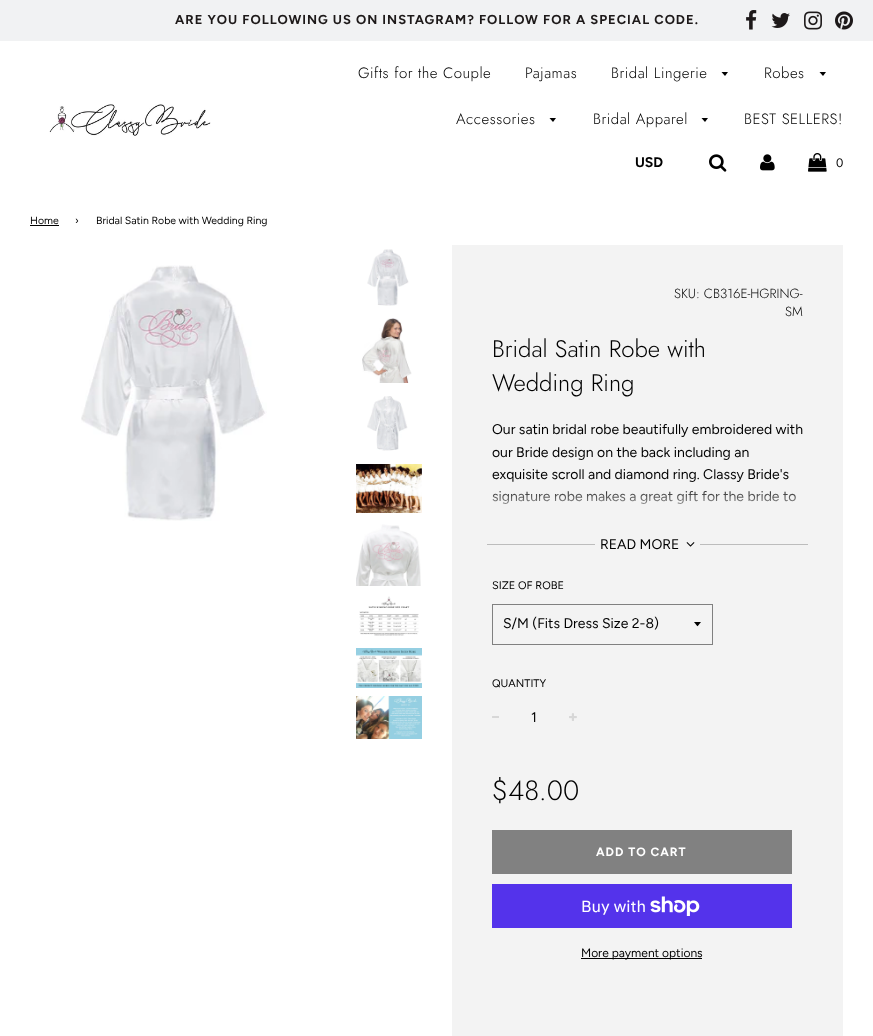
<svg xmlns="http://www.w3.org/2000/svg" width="873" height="1036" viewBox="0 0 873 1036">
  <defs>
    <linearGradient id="g1" gradientUnits="userSpaceOnUse" x1="648" y1="419" x2="648" y2="519"><stop offset="0.65" stop-color="#f3f3f3" stop-opacity="0"/><stop offset="1" stop-color="#f3f3f3"/></linearGradient>
  </defs>
  <rect width="100%" height="100%" fill="#ffffff"/>
  <rect x="0" y="0" width="873" height="41" fill="#f1f2f3"/>
  <text x="175" y="24" font-family="Figtree" font-size="13" font-weight="bold" letter-spacing="1" fill="#1d1919">ARE YOU FOLLOWING US ON INSTAGRAM? FOLLOW FOR A SPECIAL CODE.</text>
  <image x="746" y="10" width="11" height="20" href="img1.png"/>
  <image x="771" y="13" width="19" height="15" href="img2.png"/>
  <image x="804" y="11" width="18" height="19" href="img3.png"/>
  <image x="835" y="11" width="18" height="19" href="img4.png"/>
  <image x="49" y="104" width="162" height="32" href="img5.png"/>
  <text x="358" y="78" font-family="Jost" font-size="15" font-weight="300" letter-spacing="0.5" fill="#000000">Gifts for the Couple</text>
  <text x="525" y="78" font-family="Jost" font-size="15" font-weight="300" letter-spacing="0.5" fill="#000000">Pajamas</text>
  <text x="611" y="78" font-family="Jost" font-size="15" font-weight="300" letter-spacing="0.5" fill="#000000">Bridal Lingerie</text>
  <path d="M721.5 72L725 76L728 72Z" fill="#000000"/>
  <text x="764" y="78" font-family="Jost" font-size="15" font-weight="300" letter-spacing="0.5" fill="#000000">Robes</text>
  <path d="M819.5 72L823 76L826 72Z" fill="#000000"/>
  <text x="456" y="124" font-family="Jost" font-size="15" font-weight="300" letter-spacing="0.5" fill="#000000">Accessories</text>
  <path d="M549.5 118L553 122L556 118Z" fill="#000000"/>
  <text x="593" y="124" font-family="Jost" font-size="15" font-weight="300" letter-spacing="0.5" fill="#000000">Bridal Apparel</text>
  <path d="M701.5 118L705 122L708 118Z" fill="#000000"/>
  <text x="744" y="124" font-family="Jost" font-size="15" font-weight="300" letter-spacing="0.5" fill="#000000">BEST SELLERS!</text>
  <text x="635" y="167" font-family="Figtree" font-size="14" font-weight="bold" fill="#000000">USD</text>
  <image x="709" y="154" width="18" height="18" href="img6.png"/>
  <image x="760" y="154" width="15" height="17" href="img7.png"/>
  <image x="808" y="153" width="19" height="19" href="img8.png"/>
  <text x="836" y="167" font-family="Jost" font-size="12" font-weight="bold" fill="#000000">0</text>
  <text x="30" y="224" font-family="Figtree" font-size="10.5" fill="#000000">Home</text>
  <rect x="30" y="225" width="29" height="1" fill="#000000"/>
  <text x="75" y="224" font-family="Figtree" font-size="10.5" fill="#000000">›</text>
  <text x="96" y="224" font-family="Figtree" font-size="10.5" fill="#000000">Bridal Satin Robe with Wedding Ring</text>
  <image x="81" y="265" width="186" height="256" href="img9.png"/>
  <image x="367" y="249" width="42" height="57" href="img10.png"/>
  <image x="362" y="318" width="50" height="65" href="img11.png"/>
  <image x="367" y="396" width="41" height="55" href="img12.png"/>
  <image x="356" y="464" width="66" height="49" href="img13.png"/>
  <image x="356" y="524" width="65" height="62" href="img14.png"/>
  <image x="359" y="596" width="60" height="40" href="img15.png"/>
  <image x="356" y="648" width="66" height="40" href="img16.png"/>
  <image x="356" y="696" width="66" height="43" href="img17.png"/>
  <rect x="452" y="245" width="391" height="791" fill="#f3f3f3"/>
  <text x="674" y="298" font-family="Jost" font-size="13.25" font-weight="300" fill="#000000">SKU: CB316E-HGRING-</text>
  <text x="785" y="316" font-family="Jost" font-size="13.25" font-weight="300" fill="#000000">SM</text>
  <text x="492" y="357" font-family="Jost" font-size="24" font-weight="300" fill="#000000">Bridal Satin Robe with</text>
  <text x="492" y="391" font-family="Jost" font-size="24" font-weight="300" fill="#000000">Wedding Ring</text>
  <text x="492" y="434" font-family="Figtree" font-size="14" fill="#000000">Our satin bridal robe beautifully embroidered with</text>
  <text x="492" y="457" font-family="Figtree" font-size="14" fill="#000000">our Bride design on the back including an</text>
  <text x="492" y="479" font-family="Figtree" font-size="14" fill="#000000">exquisite scroll and diamond ring. Classy Bride's</text>
  <text x="492" y="501" font-family="Figtree" font-size="14" fill="#000000">signature robe makes a great gift for the bride to</text>
  <rect x="492" y="491" width="304" height="13" fill="url(#g1)"/>
  <rect x="487" y="544" width="108" height="1" fill="#bcbcbc"/>
  <text x="600" y="549" font-family="Figtree" font-size="14" fill="#000000">READ MORE</text>
  <image x="686" y="542" width="9" height="5" href="img18.png"/>
  <rect x="700" y="544" width="108" height="1" fill="#bcbcbc"/>
  <text x="492" y="589" font-family="Figtree" font-size="11" fill="#000000">SIZE OF ROBE</text>
  <path d="M694 622C698.5 627.5 696.5 627.5 701 622Z" fill="#000000"/>
  <rect x="492.5" y="604.5" width="220" height="40" fill="none" stroke="#808080"/>
  <text x="503" y="628" font-family="Figtree" font-size="14" fill="#000000">S/M (Fits Dress Size 2-8)</text>
  <text x="492" y="687" font-family="Figtree" font-size="11" fill="#000000">QUANTITY</text>
  <image x="492" y="716" width="7" height="2" href="img19.png"/>
  <text x="531" y="722" font-family="Figtree" font-size="14" fill="#000000">1</text>
  <image x="569" y="713" width="8" height="8" href="img20.png"/>
  <text x="492" y="800" font-family="Jost" font-size="28" font-weight="300" fill="#000000">$48.00</text>
  <rect x="492" y="830" width="300" height="44" fill="#818181"/>
  <text x="596" y="856" font-family="Figtree" font-size="12" font-weight="bold" letter-spacing="1" fill="#ffffff">ADD TO CART</text>
  <rect x="492" y="884" width="300" height="44" fill="#5433eb"/>
  <text x="581" y="912" font-family="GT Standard" font-size="16" fill="#ffffff">Buy with</text>
  <image x="650" y="896" width="50" height="20" href="img21.png"/>
  <rect x="581" y="958" width="121" height="1" fill="#000000"/>
  <text x="581" y="957" font-family="Figtree" font-size="12" fill="#000000">More payment options</text>
</svg>
